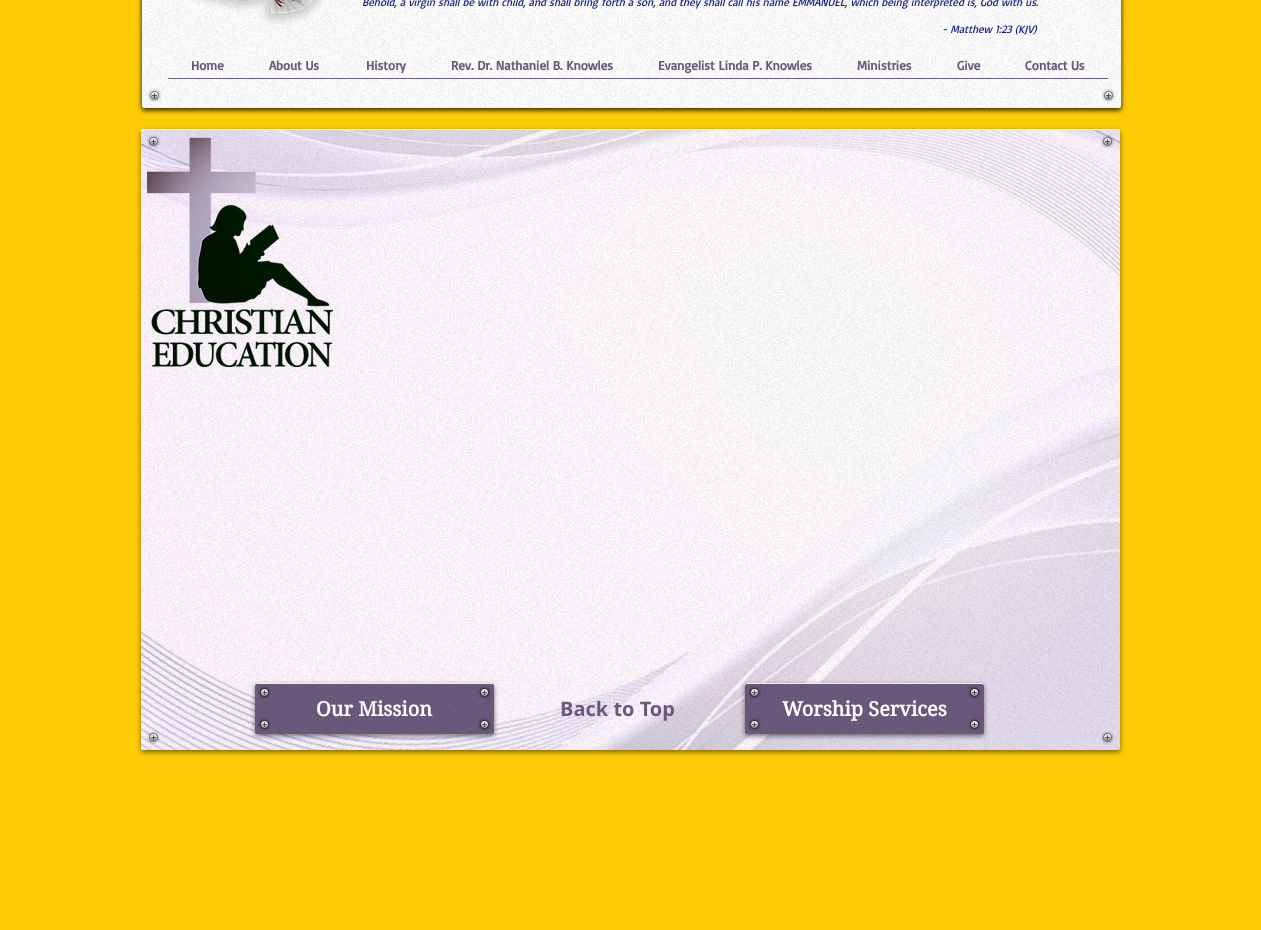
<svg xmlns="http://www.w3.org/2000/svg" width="1261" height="930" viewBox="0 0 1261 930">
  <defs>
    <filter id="blur1" x="-50%" y="-200%" width="200%" height="500%"><feGaussianBlur stdDeviation="2.5"/></filter>
    <clipPath id="clip1"><path d="M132 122H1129V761H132ZM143 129H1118C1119 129 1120 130 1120 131V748C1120 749 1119 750 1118 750H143C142 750 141 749 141 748V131C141 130 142 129 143 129Z" clip-rule="evenodd"/></clipPath>
  </defs>
  <rect width="100%" height="100%" fill="#ffcb05"/>
  <rect x="142" y="-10" width="979" height="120" rx="2" fill="#000000" fill-opacity="0.53" filter="url(#blur1)"/>
  <image x="142" y="106" width="979" height="2" href="img1.png"/>
  <rect x="142" y="-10" width="979" height="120" rx="2" fill="#000000" fill-opacity="0.53" filter="url(#blur1)"/>
  <rect x="142" y="-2" width="979" height="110" rx="2" fill="#ffffff"/>
  <image x="142" y="0" width="979" height="108" href="img2.png"/>
  <image x="189" y="0" width="135" height="25" href="img3.png"/>
  <text x="362" y="6" font-family="Basic" font-size="11" font-style="italic" fill="#13187a">Behold, a virgin shall be with child, and shall bring forth a son, and they shall call his name EMMANUEL, which being interpreted is, God with us.</text>
  <text x="942" y="33" font-family="Basic" font-size="11" font-style="italic" fill="#13187a">- Matthew 1:23 (KJV)</text>
  <text x="191" y="70" font-family="Basic" font-size="13" font-weight="bold" fill="#6b597d">Home</text>
  <text x="269" y="70" font-family="Basic" font-size="13" font-weight="bold" fill="#6b597d">About Us</text>
  <text x="366" y="70" font-family="Basic" font-size="13" font-weight="bold" fill="#6b597d">History</text>
  <text x="451" y="70" font-family="Basic" font-size="13" font-weight="bold" fill="#6b597d">Rev. Dr. Nathaniel B. Knowles</text>
  <text x="658" y="70" font-family="Basic" font-size="13" font-weight="bold" fill="#6b597d">Evangelist Linda P. Knowles</text>
  <text x="857" y="70" font-family="Basic" font-size="13" font-weight="bold" fill="#6b597d">Ministries</text>
  <text x="957" y="70" font-family="Basic" font-size="13" font-weight="bold" fill="#6b597d">Give</text>
  <text x="1025" y="70" font-family="Basic" font-size="13" font-weight="bold" fill="#6b597d">Contact Us</text>
  <rect x="168" y="78" width="940" height="1" fill="#6b597d"/>
  <image x="148" y="89" width="13" height="13" href="img4.png"/>
  <image x="1102" y="89" width="13" height="13" href="img5.png"/>
  <image x="141" y="129" width="979" height="621" href="img6.png"/>
  <g clip-path="url(#clip1)">
    <rect x="141" y="131" width="979" height="621" rx="2" fill="#000000" fill-opacity="0.53" filter="url(#blur1)"/>
  </g>
  <rect x="141" y="129" width="979" height="621" rx="2" fill="#ffffff" fill-opacity="0.6"/>
  <image x="141" y="129" width="979" height="621" href="img7.png"/>
  <path d="M143 130H1118C1119 130 1120 131 1120 132V131C1120 130 1119 129 1118 129H143C142 129 141 130 141 131V132C141 131 142 130 143 130Z" fill="#ffffff" fill-opacity="0.92"/>
  <image x="147" y="135" width="13" height="13" href="img8.png"/>
  <image x="1101" y="135" width="13" height="13" href="img9.png"/>
  <image x="147" y="137" width="186" height="230" href="img10.png"/>
  <rect x="255" y="685" width="239" height="51" rx="2" fill="#000000" fill-opacity="0.53" filter="url(#blur1)"/>
  <rect x="255" y="683" width="239" height="51" rx="2" fill="#6b597d"/>
  <image x="255" y="683" width="239" height="51" href="img11.png"/>
  <path d="M257 684H492C493 684 494 685 494 686C494 685 494 683 492 683H257L255 684V686C255 685 256 684 257 684Z" fill="#ffffff" fill-opacity="0.92"/>
  <image x="258" y="686" width="13" height="13" href="img12.png"/>
  <image x="478" y="686" width="13" height="13" href="img13.png"/>
  <text x="316" y="716" font-family="'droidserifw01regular'" font-size="20" font-weight="bold" fill="#ffffff">Our Mission</text>
  <image x="258" y="718" width="13" height="13" href="img14.png"/>
  <image x="478" y="718" width="13" height="13" href="img15.png"/>
  <text x="560" y="716" font-family="Open Sans" font-size="20" font-weight="bold" fill="#6b597d">Back to Top</text>
  <rect x="745" y="685" width="239" height="51" rx="2" fill="#000000" fill-opacity="0.53" filter="url(#blur1)"/>
  <rect x="745" y="683" width="239" height="51" rx="2" fill="#6b597d"/>
  <image x="745" y="683" width="239" height="51" href="img16.png"/>
  <path d="M747 684H982C983 684 984 685 984 686V684L982 683H747C745 683 745 685 745 686C745 685 746 684 747 684Z" fill="#ffffff" fill-opacity="0.92"/>
  <image x="748" y="686" width="13" height="13" href="img12.png"/>
  <image x="968" y="686" width="13" height="13" href="img13.png"/>
  <text x="782" y="716" font-family="'droidserifw01regular'" font-size="20" font-weight="bold" fill="#ffffff">Worship Services</text>
  <image x="748" y="718" width="13" height="13" href="img14.png"/>
  <image x="968" y="718" width="13" height="13" href="img15.png"/>
  <image x="147" y="731" width="13" height="13" href="img17.png"/>
  <image x="1101" y="731" width="13" height="13" href="img18.png"/>
</svg>
